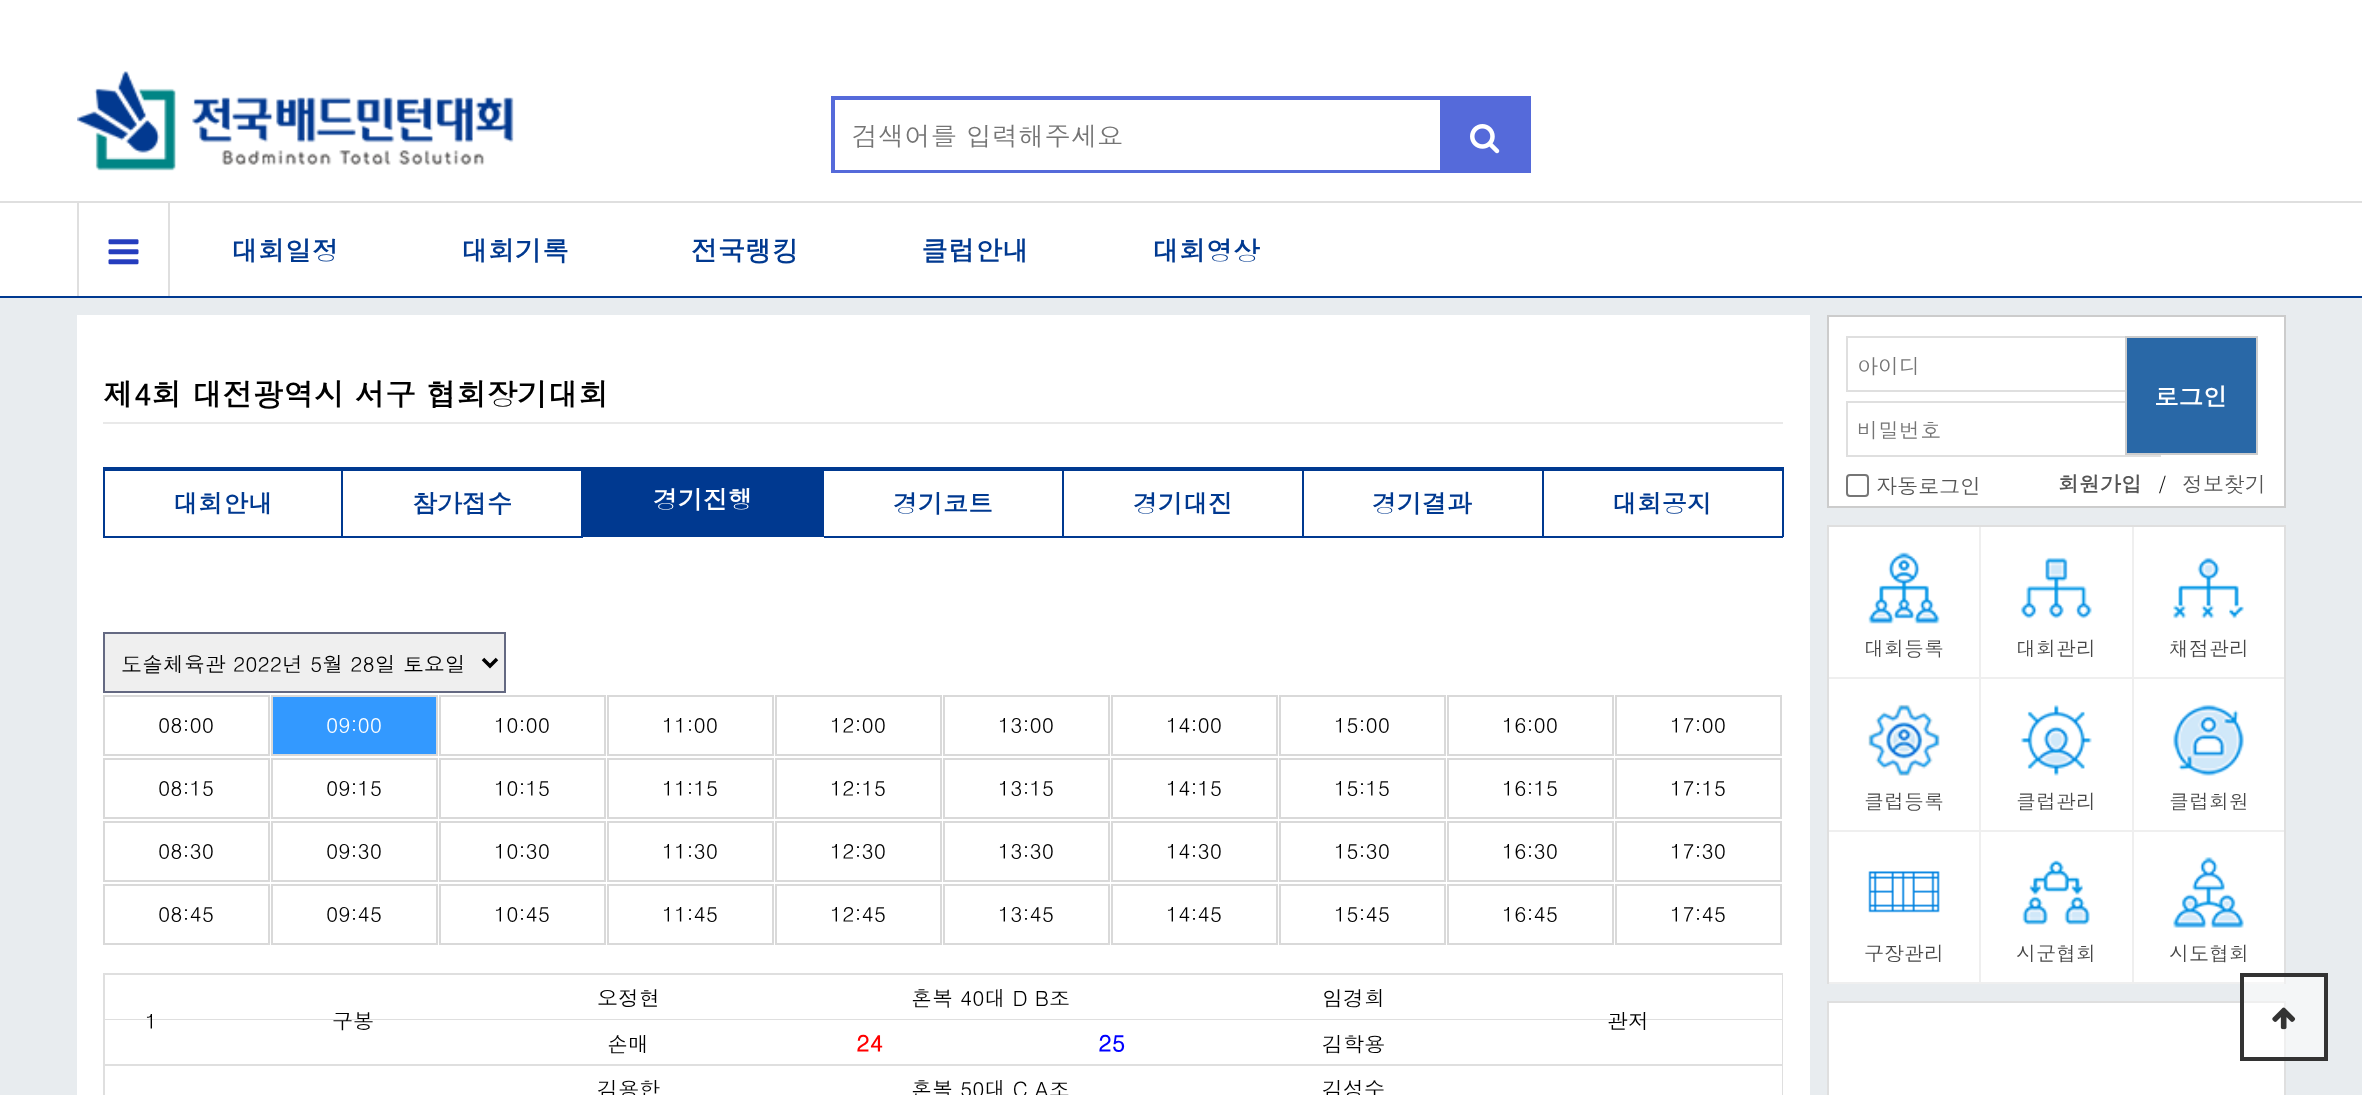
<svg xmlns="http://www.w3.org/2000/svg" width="2362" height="1095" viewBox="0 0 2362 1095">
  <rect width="100%" height="100%" fill="#e8ecef"/>
  <rect x="0" y="0" width="2362" height="201" fill="#ffffff"/>
  <image x="77" y="71" width="437" height="100" href="img1.png"/>
  <rect x="833" y="98" width="696" height="73" fill="none" stroke="#556ada" stroke-width="4"/>
  <rect x="835" y="169" width="605" height="1" fill="#ffffff"/>
  <text x="852" y="146" font-family="Dotum" font-size="26.25" fill="#757575">검색어를 입력해주세요</text>
  <rect x="1440" y="100" width="87" height="69" fill="#556ada"/>
  <image x="1470" y="124" width="30" height="30" href="img2.png"/>
  <rect x="0" y="203" width="2362" height="93" fill="#ffffff"/>
  <rect x="0" y="201" width="2362" height="2" fill="#dfdfdf"/>
  <rect x="0" y="296" width="2362" height="2" fill="#003990"/>
  <rect x="168" y="203" width="2" height="93" fill="#dfdfdf"/>
  <rect x="77" y="203" width="2" height="93" fill="#dfdfdf"/>
  <image x="108" y="239" width="31" height="26" href="img3.png"/>
  <text x="231" y="261" font-family="Dotum" font-size="27" font-weight="bold" fill="#003990">대회일정</text>
  <text x="461" y="261" font-family="Dotum" font-size="27" font-weight="bold" fill="#003990">대회기록</text>
  <text x="691" y="261" font-family="Dotum" font-size="27" font-weight="bold" fill="#003990">전국랭킹</text>
  <text x="921" y="261" font-family="Dotum" font-size="27" font-weight="bold" fill="#003990">클럽안내</text>
  <text x="1152" y="261" font-family="Dotum" font-size="27" font-weight="bold" fill="#003990">대회영상</text>
  <rect x="77" y="315" width="1733" height="780" fill="#ffffff"/>
  <rect x="103" y="422" width="1680" height="2" fill="#e9e9e9"/>
  <text x="103" y="406" font-family="Dotum" font-size="30.5" font-weight="bold" fill="#000000">제4회 대전광역시 서구 협회장기대회</text>
  <rect x="103" y="467" width="480" height="4" fill="#003990"/>
  <rect x="341" y="467" width="2" height="70" fill="#003990"/>
  <rect x="103" y="536" width="240" height="2" fill="#003990"/>
  <rect x="103" y="467" width="2" height="70" fill="#003990"/>
  <text x="173" y="513" font-family="Dotum" font-size="25" font-weight="bold" fill="#003990">대회안내</text>
  <rect x="581" y="467" width="243" height="70" fill="#003990"/>
  <rect x="343" y="536" width="240" height="2" fill="#003990"/>
  <text x="412" y="513" font-family="Dotum" font-size="25" font-weight="bold" fill="#003990">참가접수</text>
  <text x="653" y="509" font-family="Dotum" font-size="25" font-weight="bold" fill="#ffffff">경기진행</text>
  <rect x="824" y="467" width="959" height="4" fill="#003990"/>
  <rect x="1062" y="467" width="2" height="70" fill="#003990"/>
  <rect x="824" y="536" width="240" height="2" fill="#003990"/>
  <text x="893" y="513" font-family="Dotum" font-size="25" font-weight="bold" fill="#003990">경기코트</text>
  <rect x="1302" y="467" width="2" height="70" fill="#003990"/>
  <rect x="1064" y="536" width="240" height="2" fill="#003990"/>
  <text x="1133" y="513" font-family="Dotum" font-size="25" font-weight="bold" fill="#003990">경기대진</text>
  <rect x="1542" y="467" width="2" height="70" fill="#003990"/>
  <rect x="1304" y="536" width="240" height="2" fill="#003990"/>
  <text x="1372" y="513" font-family="Dotum" font-size="25" font-weight="bold" fill="#003990">경기결과</text>
  <rect x="1782" y="467" width="2" height="70" fill="#003990"/>
  <rect x="1544" y="536" width="239" height="2" fill="#003990"/>
  <text x="1612" y="513" font-family="Dotum" font-size="25" font-weight="bold" fill="#003990">대회공지</text>
  <rect x="104" y="633" width="401" height="59" fill="#efefef" stroke="#646982" stroke-width="2"/>
  <path d="M483 659L490 666L497 659" fill="none" stroke="#000000" stroke-width="3.5"/>
  <text x="121" y="672" font-family="Dotum" font-size="21" fill="#000000">도솔체육관 2022년 5월 28일 토요일</text>
  <rect x="104" y="696" width="165" height="59" fill="none" stroke="#d9d9d9" stroke-width="2"/>
  <text x="158" y="733" font-family="Dotum" font-size="21" fill="#000000">08:00</text>
  <rect x="104" y="759" width="165" height="59" fill="none" stroke="#d9d9d9" stroke-width="2"/>
  <text x="158" y="796" font-family="Dotum" font-size="21" fill="#000000">08:15</text>
  <rect x="104" y="822" width="165" height="59" fill="none" stroke="#d9d9d9" stroke-width="2"/>
  <text x="158" y="859" font-family="Dotum" font-size="21" fill="#000000">08:30</text>
  <rect x="104" y="885" width="165" height="59" fill="none" stroke="#d9d9d9" stroke-width="2"/>
  <text x="158" y="922" font-family="Dotum" font-size="21" fill="#000000">08:45</text>
  <rect x="272" y="696" width="165" height="59" fill="#3399ff" stroke="#d9d9d9" stroke-width="2"/>
  <text x="326" y="733" font-family="Dotum" font-size="21" fill="#ffffff">09:00</text>
  <rect x="272" y="759" width="165" height="59" fill="none" stroke="#d9d9d9" stroke-width="2"/>
  <text x="326" y="796" font-family="Dotum" font-size="21" fill="#000000">09:15</text>
  <rect x="272" y="822" width="165" height="59" fill="none" stroke="#d9d9d9" stroke-width="2"/>
  <text x="326" y="859" font-family="Dotum" font-size="21" fill="#000000">09:30</text>
  <rect x="272" y="885" width="165" height="59" fill="none" stroke="#d9d9d9" stroke-width="2"/>
  <text x="326" y="922" font-family="Dotum" font-size="21" fill="#000000">09:45</text>
  <rect x="440" y="696" width="165" height="59" fill="none" stroke="#d9d9d9" stroke-width="2"/>
  <text x="494" y="733" font-family="Dotum" font-size="21" fill="#000000">10:00</text>
  <rect x="440" y="759" width="165" height="59" fill="none" stroke="#d9d9d9" stroke-width="2"/>
  <text x="494" y="796" font-family="Dotum" font-size="21" fill="#000000">10:15</text>
  <rect x="440" y="822" width="165" height="59" fill="none" stroke="#d9d9d9" stroke-width="2"/>
  <text x="494" y="859" font-family="Dotum" font-size="21" fill="#000000">10:30</text>
  <rect x="440" y="885" width="165" height="59" fill="none" stroke="#d9d9d9" stroke-width="2"/>
  <text x="494" y="922" font-family="Dotum" font-size="21" fill="#000000">10:45</text>
  <rect x="608" y="696" width="165" height="59" fill="none" stroke="#d9d9d9" stroke-width="2"/>
  <text x="662" y="733" font-family="Dotum" font-size="21" fill="#000000">11:00</text>
  <rect x="608" y="759" width="165" height="59" fill="none" stroke="#d9d9d9" stroke-width="2"/>
  <text x="662" y="796" font-family="Dotum" font-size="21" fill="#000000">11:15</text>
  <rect x="608" y="822" width="165" height="59" fill="none" stroke="#d9d9d9" stroke-width="2"/>
  <text x="662" y="859" font-family="Dotum" font-size="21" fill="#000000">11:30</text>
  <rect x="608" y="885" width="165" height="59" fill="none" stroke="#d9d9d9" stroke-width="2"/>
  <text x="662" y="922" font-family="Dotum" font-size="21" fill="#000000">11:45</text>
  <rect x="776" y="696" width="165" height="59" fill="none" stroke="#d9d9d9" stroke-width="2"/>
  <text x="830" y="733" font-family="Dotum" font-size="21" fill="#000000">12:00</text>
  <rect x="776" y="759" width="165" height="59" fill="none" stroke="#d9d9d9" stroke-width="2"/>
  <text x="830" y="796" font-family="Dotum" font-size="21" fill="#000000">12:15</text>
  <rect x="776" y="822" width="165" height="59" fill="none" stroke="#d9d9d9" stroke-width="2"/>
  <text x="830" y="859" font-family="Dotum" font-size="21" fill="#000000">12:30</text>
  <rect x="776" y="885" width="165" height="59" fill="none" stroke="#d9d9d9" stroke-width="2"/>
  <text x="830" y="922" font-family="Dotum" font-size="21" fill="#000000">12:45</text>
  <rect x="944" y="696" width="165" height="59" fill="none" stroke="#d9d9d9" stroke-width="2"/>
  <text x="998" y="733" font-family="Dotum" font-size="21" fill="#000000">13:00</text>
  <rect x="944" y="759" width="165" height="59" fill="none" stroke="#d9d9d9" stroke-width="2"/>
  <text x="998" y="796" font-family="Dotum" font-size="21" fill="#000000">13:15</text>
  <rect x="944" y="822" width="165" height="59" fill="none" stroke="#d9d9d9" stroke-width="2"/>
  <text x="998" y="859" font-family="Dotum" font-size="21" fill="#000000">13:30</text>
  <rect x="944" y="885" width="165" height="59" fill="none" stroke="#d9d9d9" stroke-width="2"/>
  <text x="998" y="922" font-family="Dotum" font-size="21" fill="#000000">13:45</text>
  <rect x="1112" y="696" width="165" height="59" fill="none" stroke="#d9d9d9" stroke-width="2"/>
  <text x="1166" y="733" font-family="Dotum" font-size="21" fill="#000000">14:00</text>
  <rect x="1112" y="759" width="165" height="59" fill="none" stroke="#d9d9d9" stroke-width="2"/>
  <text x="1166" y="796" font-family="Dotum" font-size="21" fill="#000000">14:15</text>
  <rect x="1112" y="822" width="165" height="59" fill="none" stroke="#d9d9d9" stroke-width="2"/>
  <text x="1166" y="859" font-family="Dotum" font-size="21" fill="#000000">14:30</text>
  <rect x="1112" y="885" width="165" height="59" fill="none" stroke="#d9d9d9" stroke-width="2"/>
  <text x="1166" y="922" font-family="Dotum" font-size="21" fill="#000000">14:45</text>
  <rect x="1280" y="696" width="165" height="59" fill="none" stroke="#d9d9d9" stroke-width="2"/>
  <text x="1334" y="733" font-family="Dotum" font-size="21" fill="#000000">15:00</text>
  <rect x="1280" y="759" width="165" height="59" fill="none" stroke="#d9d9d9" stroke-width="2"/>
  <text x="1334" y="796" font-family="Dotum" font-size="21" fill="#000000">15:15</text>
  <rect x="1280" y="822" width="165" height="59" fill="none" stroke="#d9d9d9" stroke-width="2"/>
  <text x="1334" y="859" font-family="Dotum" font-size="21" fill="#000000">15:30</text>
  <rect x="1280" y="885" width="165" height="59" fill="none" stroke="#d9d9d9" stroke-width="2"/>
  <text x="1334" y="922" font-family="Dotum" font-size="21" fill="#000000">15:45</text>
  <rect x="1448" y="696" width="165" height="59" fill="none" stroke="#d9d9d9" stroke-width="2"/>
  <text x="1502" y="733" font-family="Dotum" font-size="21" fill="#000000">16:00</text>
  <rect x="1448" y="759" width="165" height="59" fill="none" stroke="#d9d9d9" stroke-width="2"/>
  <text x="1502" y="796" font-family="Dotum" font-size="21" fill="#000000">16:15</text>
  <rect x="1448" y="822" width="165" height="59" fill="none" stroke="#d9d9d9" stroke-width="2"/>
  <text x="1502" y="859" font-family="Dotum" font-size="21" fill="#000000">16:30</text>
  <rect x="1448" y="885" width="165" height="59" fill="none" stroke="#d9d9d9" stroke-width="2"/>
  <text x="1502" y="922" font-family="Dotum" font-size="21" fill="#000000">16:45</text>
  <rect x="1616" y="696" width="165" height="59" fill="none" stroke="#d9d9d9" stroke-width="2"/>
  <text x="1670" y="733" font-family="Dotum" font-size="21" fill="#000000">17:00</text>
  <rect x="1616" y="759" width="165" height="59" fill="none" stroke="#d9d9d9" stroke-width="2"/>
  <text x="1670" y="796" font-family="Dotum" font-size="21" fill="#000000">17:15</text>
  <rect x="1616" y="822" width="165" height="59" fill="none" stroke="#d9d9d9" stroke-width="2"/>
  <text x="1670" y="859" font-family="Dotum" font-size="21" fill="#000000">17:30</text>
  <rect x="1616" y="885" width="165" height="59" fill="none" stroke="#d9d9d9" stroke-width="2"/>
  <text x="1670" y="922" font-family="Dotum" font-size="21" fill="#000000">17:45</text>
  <rect x="103" y="973" width="1680" height="122" fill="#dfdfdf"/>
  <rect x="105" y="975" width="1677" height="44" fill="#ffffff"/>
  <text x="597" y="1006" font-family="Dotum" font-size="21" fill="#000000">오정현</text>
  <text x="911" y="1006" font-family="Dotum" font-size="21" fill="#000000">혼복 40대 D B조</text>
  <text x="1322" y="1006" font-family="Dotum" font-size="21" fill="#000000">임경희</text>
  <rect x="105" y="1020" width="1677" height="44" fill="#ffffff"/>
  <text x="145" y="1029" font-family="Dotum" font-size="21" fill="#000000">1</text>
  <text x="332" y="1029" font-family="Dotum" font-size="21" fill="#000000">구봉</text>
  <text x="1607" y="1029" font-family="Dotum" font-size="21" fill="#000000">관저</text>
  <text x="607" y="1052" font-family="Dotum" font-size="21" fill="#000000">손매</text>
  <text x="856" y="1052" font-family="Dotum" font-size="23" font-weight="bold" fill="#ff0000">24</text>
  <text x="1098" y="1052" font-family="Dotum" font-size="23" font-weight="bold" fill="#0000ff">25</text>
  <text x="1322" y="1052" font-family="Dotum" font-size="21" fill="#000000">김학용</text>
  <rect x="105" y="1066" width="1677" height="29" fill="#ffffff"/>
  <text x="597" y="1097" font-family="Dotum" font-size="21" fill="#000000">김용한</text>
  <text x="911" y="1097" font-family="Dotum" font-size="21" fill="#000000">혼복 50대 C A조</text>
  <text x="1322" y="1097" font-family="Dotum" font-size="21" fill="#000000">김성수</text>
  <rect x="1828" y="316" width="457" height="191" fill="#ffffff" stroke="#cccccc" stroke-width="2"/>
  <rect x="1847" y="337" width="313" height="54" fill="none" stroke="#dfdfdf" stroke-width="2"/>
  <text x="1857" y="374" font-family="Dotum" font-size="21" fill="#757575">아이디</text>
  <rect x="1847" y="402" width="313" height="54" fill="none" stroke="#dfdfdf" stroke-width="2"/>
  <rect x="2126" y="337" width="131" height="117" fill="#2968a7" stroke="#cccccc" stroke-width="2"/>
  <text x="2154" y="406" font-family="Dotum" font-size="24.5" font-weight="bold" fill="#ffffff">로그인</text>
  <text x="1857" y="438" font-family="Dotum" font-size="21" fill="#757575">비밀번호</text>
  <rect x="1847" y="475" width="21" height="21" rx="3" fill="none" stroke="#767676" stroke-width="2"/>
  <text x="1876" y="494" font-family="Dotum" font-size="21" fill="#555555">자동로그인</text>
  <text x="2058" y="492" font-family="Dotum" font-size="21" font-weight="bold" fill="#555555">회원가입</text>
  <text x="2158" y="492" font-family="Dotum" font-size="21" fill="#000000">/</text>
  <text x="2182" y="492" font-family="Dotum" font-size="21" fill="#555555">정보찾기</text>
  <rect x="1828" y="526" width="457" height="457" fill="#ffffff" stroke="#dfdfdf" stroke-width="2"/>
  <rect x="1979" y="527" width="2" height="304" fill="#efefef"/>
  <rect x="1829" y="677" width="152" height="2" fill="#efefef"/>
  <image x="1868" y="552" width="72" height="72" href="img4.png"/>
  <text x="1864" y="656" font-family="Dotum" font-size="20" fill="#484848">대회등록</text>
  <rect x="2132" y="527" width="2" height="304" fill="#efefef"/>
  <rect x="1981" y="677" width="303" height="2" fill="#efefef"/>
  <image x="2020" y="557" width="72" height="62" href="img5.png"/>
  <text x="2016" y="656" font-family="Dotum" font-size="20" fill="#484848">대회관리</text>
  <image x="2173" y="557" width="71" height="62" href="img6.png"/>
  <text x="2169" y="656" font-family="Dotum" font-size="20" fill="#484848">채점관리</text>
  <rect x="1829" y="830" width="455" height="2" fill="#efefef"/>
  <image x="1868" y="704" width="72" height="72" href="img7.png"/>
  <text x="1864" y="809" font-family="Dotum" font-size="20" fill="#484848">클럽등록</text>
  <image x="2020" y="704" width="72" height="72" href="img8.png"/>
  <text x="2016" y="809" font-family="Dotum" font-size="20" fill="#484848">클럽관리</text>
  <image x="2173" y="704" width="71" height="72" href="img9.png"/>
  <text x="2169" y="809" font-family="Dotum" font-size="20" fill="#484848">클럽회원</text>
  <rect x="1979" y="831" width="2" height="153" fill="#efefef"/>
  <rect x="1829" y="982" width="152" height="2" fill="#efefef"/>
  <image x="1868" y="871" width="72" height="42" href="img10.png"/>
  <text x="1864" y="961" font-family="Dotum" font-size="20" fill="#484848">구장관리</text>
  <rect x="2132" y="831" width="2" height="153" fill="#efefef"/>
  <rect x="1981" y="982" width="303" height="2" fill="#efefef"/>
  <image x="2022" y="860" width="68" height="65" href="img11.png"/>
  <text x="2016" y="961" font-family="Dotum" font-size="20" fill="#484848">시군협회</text>
  <image x="2173" y="857" width="71" height="71" href="img12.png"/>
  <text x="2169" y="961" font-family="Dotum" font-size="20" fill="#484848">시도협회</text>
  <rect x="1828" y="1002" width="457" height="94" fill="#ffffff" stroke="#dfdfdf" stroke-width="2"/>
  <rect x="2242" y="975" width="84" height="84" fill="#ffffff" fill-opacity="0.5" stroke="#333333" stroke-width="4"/>
  <image x="2272" y="1007" width="24" height="23" href="img13.png"/>
</svg>
